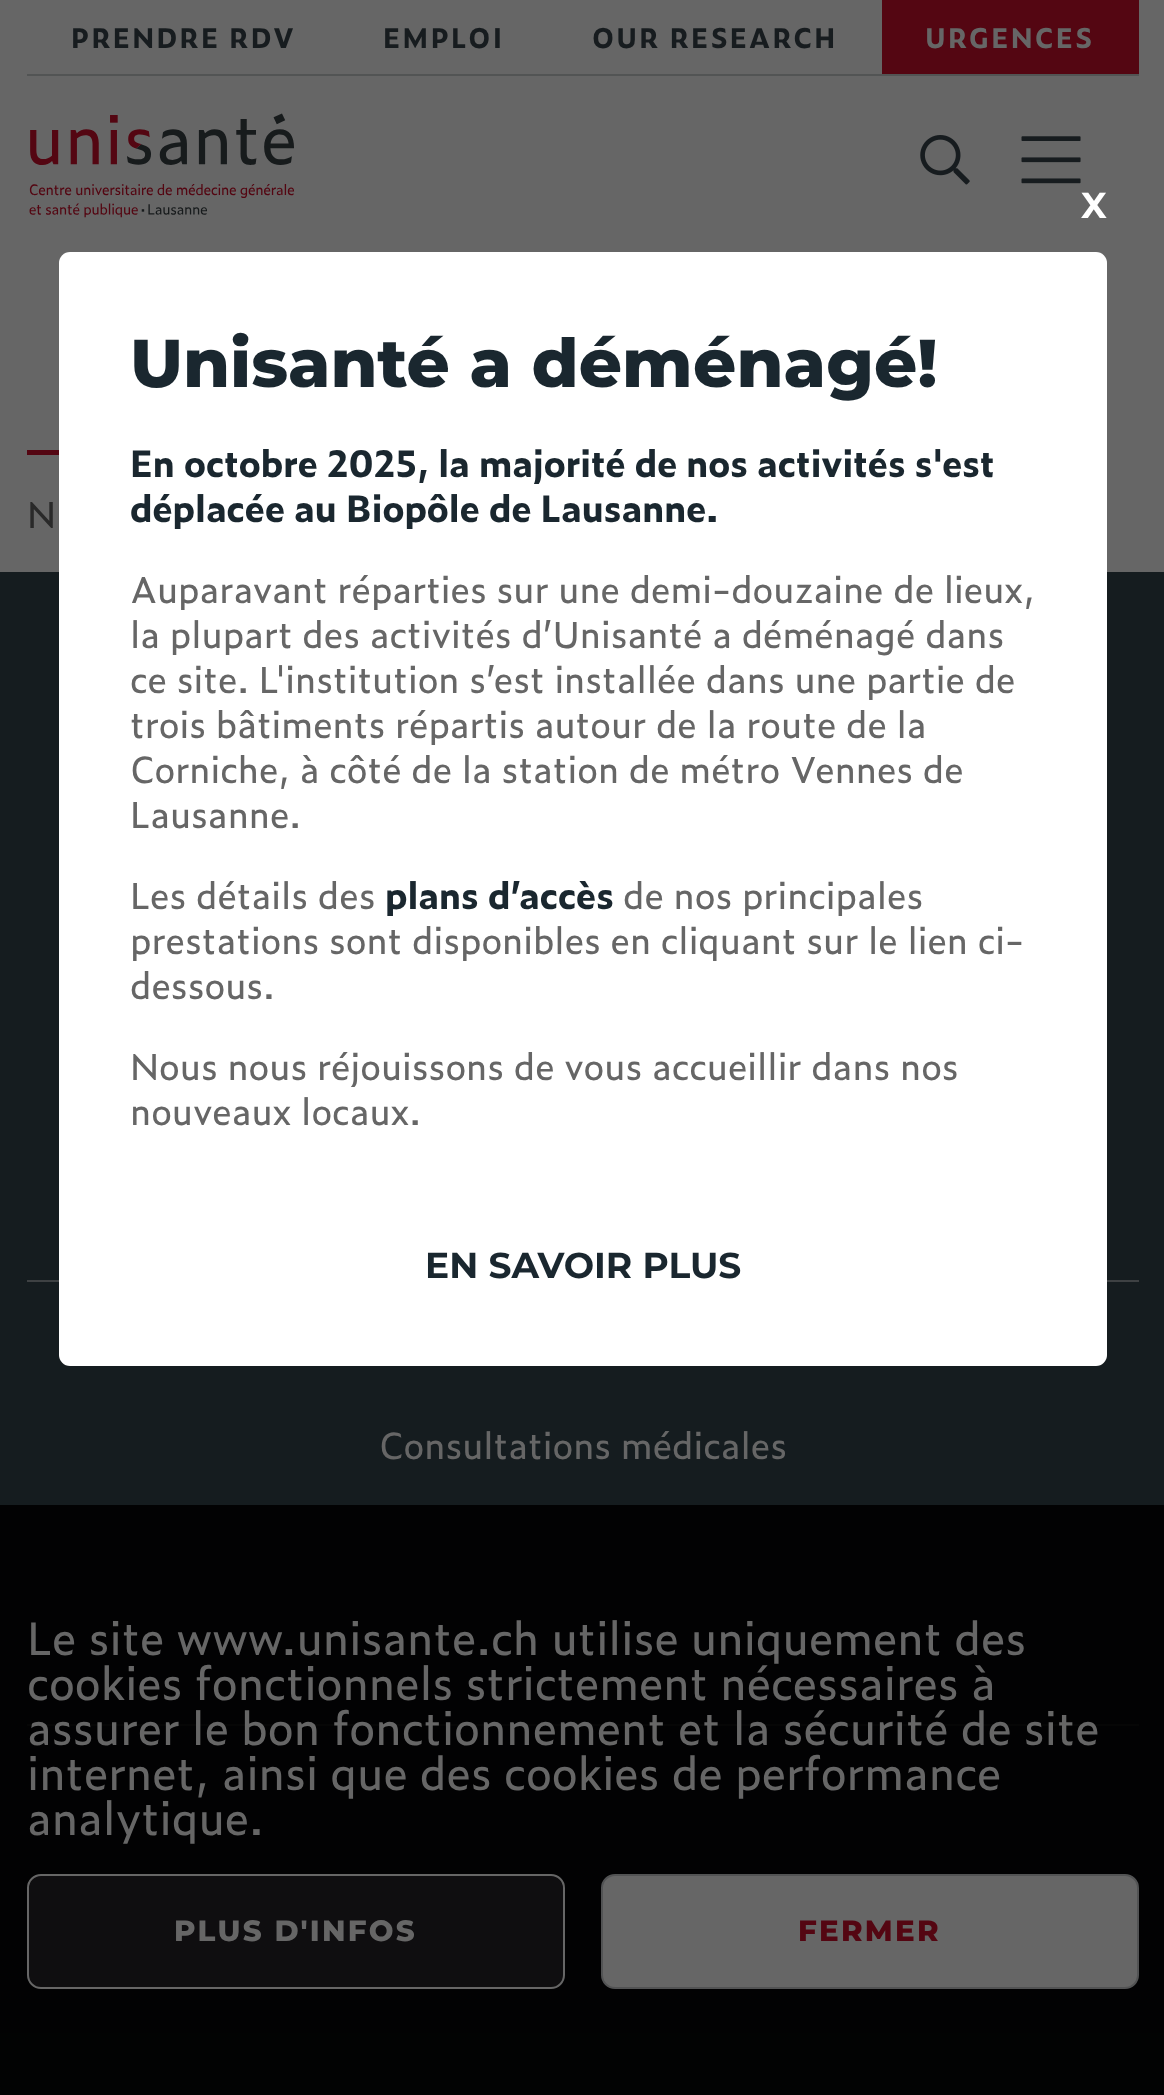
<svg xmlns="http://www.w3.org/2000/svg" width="1164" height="2095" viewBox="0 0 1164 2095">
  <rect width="100%" height="100%" fill="#666666"/>
  <rect x="27" y="74" width="1112" height="2" fill="#525454"/>
  <text x="71" y="48" font-family="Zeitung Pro" font-size="27" font-weight="bold" letter-spacing="2.25" fill="#171c1f">PRENDRE RDV</text>
  <text x="383" y="48" font-family="Zeitung Pro" font-size="27" font-weight="bold" letter-spacing="2.25" fill="#171c1f">EMPLOI</text>
  <text x="592" y="48" font-family="Zeitung Pro" font-size="27" font-weight="bold" letter-spacing="2.25" fill="#171c1f">OUR RESEARCH</text>
  <rect x="882" y="0" width="257" height="74" fill="#540612"/>
  <text x="925" y="48" font-family="Zeitung Pro" font-size="27" font-weight="bold" letter-spacing="2.25" fill="#666666">URGENCES</text>
  <image x="920" y="135" width="50" height="50" href="img1.png"/>
  <image x="1021" y="136" width="60" height="48" href="img2.png"/>
  <image x="29" y="113" width="266" height="105" href="img3.png"/>
  <rect x="27" y="450" width="32" height="5" fill="#540612"/>
  <text x="1081" y="218" font-family="Montserrat" font-size="36" font-weight="bold" fill="#ffffff">X</text>
  <rect x="0" y="572" width="1164" height="1523" fill="#151c1f"/>
  <rect x="27" y="1280" width="1112" height="2" fill="#3e4143"/>
  <rect x="59" y="252" width="1048" height="1114" rx="11" fill="#ffffff"/>
  <text x="130" y="387" font-family="Montserrat" font-size="67.5" font-weight="800" fill="#1a272f">Unisanté a déménagé!</text>
  <text x="130" y="477" font-family="Zeitung Pro" font-size="36" font-weight="bold" fill="#1a272f">En octobre 2025, la majorité de nos activités s'est</text>
  <text x="130" y="522" font-family="Zeitung Pro" font-size="36" font-weight="bold" fill="#1a272f">déplacée au Biopôle de Lausanne.</text>
  <text x="130" y="603" font-family="Zeitung Pro" font-size="36" fill="#666666">Auparavant réparties sur une demi-douzaine de lieux,</text>
  <text x="130" y="648" font-family="Zeitung Pro" font-size="36" fill="#666666">la plupart des activités d’Unisanté a déménagé dans</text>
  <text x="130" y="693" font-family="Zeitung Pro" font-size="36" fill="#666666">ce site. L'institution s’est installée dans une partie de</text>
  <text x="130" y="738" font-family="Zeitung Pro" font-size="36" fill="#666666">trois bâtiments répartis autour de la route de la</text>
  <text x="130" y="783" font-family="Zeitung Pro" font-size="36" fill="#666666">Corniche, à côté de la station de métro Vennes de</text>
  <text x="130" y="828" font-family="Zeitung Pro" font-size="36" fill="#666666">Lausanne.</text>
  <text x="130" y="909" font-family="Zeitung Pro" font-size="36" fill="#666666">Les détails des</text>
  <text x="385" y="909" font-family="Zeitung Pro" font-size="36" font-weight="bold" fill="#1a272f">plans d’accès</text>
  <text x="623" y="909" font-family="Zeitung Pro" font-size="36" fill="#666666">de nos principales</text>
  <text x="130" y="954" font-family="Zeitung Pro" font-size="36" fill="#666666">prestations sont disponibles en cliquant sur le lien ci-</text>
  <text x="130" y="999" font-family="Zeitung Pro" font-size="36" fill="#666666">dessous.</text>
  <text x="130" y="1080" font-family="Zeitung Pro" font-size="36" fill="#666666">Nous nous réjouissons de vous accueillir dans nos</text>
  <text x="130" y="1125" font-family="Zeitung Pro" font-size="36" fill="#666666">nouveaux locaux.</text>
  <text x="425" y="1278" font-family="Montserrat" font-size="36" font-weight="bold" fill="#1a272f">EN SAVOIR PLUS</text>
  <text x="27" y="528" font-family="Zeitung Pro" font-size="36" fill="#292929">N</text>
  <rect x="27" y="1724" width="1112" height="2" fill="#3e4143"/>
  <text x="379" y="1459" font-family="Zeitung Pro" font-size="36" fill="#666666">Consultations médicales</text>
  <rect x="0" y="1505" width="1164" height="590" fill="#000000" fill-opacity="0.9"/>
  <text x="27" y="1655" font-family="Zeitung Pro" font-size="45" fill="#666666">Le site www.unisante.ch utilise uniquement des</text>
  <text x="27" y="1700" font-family="Zeitung Pro" font-size="45" fill="#666666">cookies fonctionnels strictement nécessaires à</text>
  <text x="27" y="1745" font-family="Zeitung Pro" font-size="45" fill="#666666">assurer le bon fonctionnement et la sécurité de site</text>
  <text x="27" y="1790" font-family="Zeitung Pro" font-size="45" fill="#666666">internet, ainsi que des cookies de performance</text>
  <text x="27" y="1835" font-family="Zeitung Pro" font-size="45" fill="#666666">analytique.</text>
  <rect x="28" y="1875" width="536" height="113" rx="13" fill="#0f0e10" stroke="#666666" stroke-width="2"/>
  <text x="174" y="1941" font-family="Montserrat" font-size="29.25" font-weight="800" letter-spacing="2.25" fill="#666666">PLUS D'INFOS</text>
  <rect x="602" y="1875" width="536" height="113" rx="13" fill="#666666" stroke="#525354" stroke-width="2"/>
  <text x="798" y="1941" font-family="Montserrat" font-size="29.25" font-weight="800" letter-spacing="2.25" fill="#540612">FERMER</text>
</svg>
